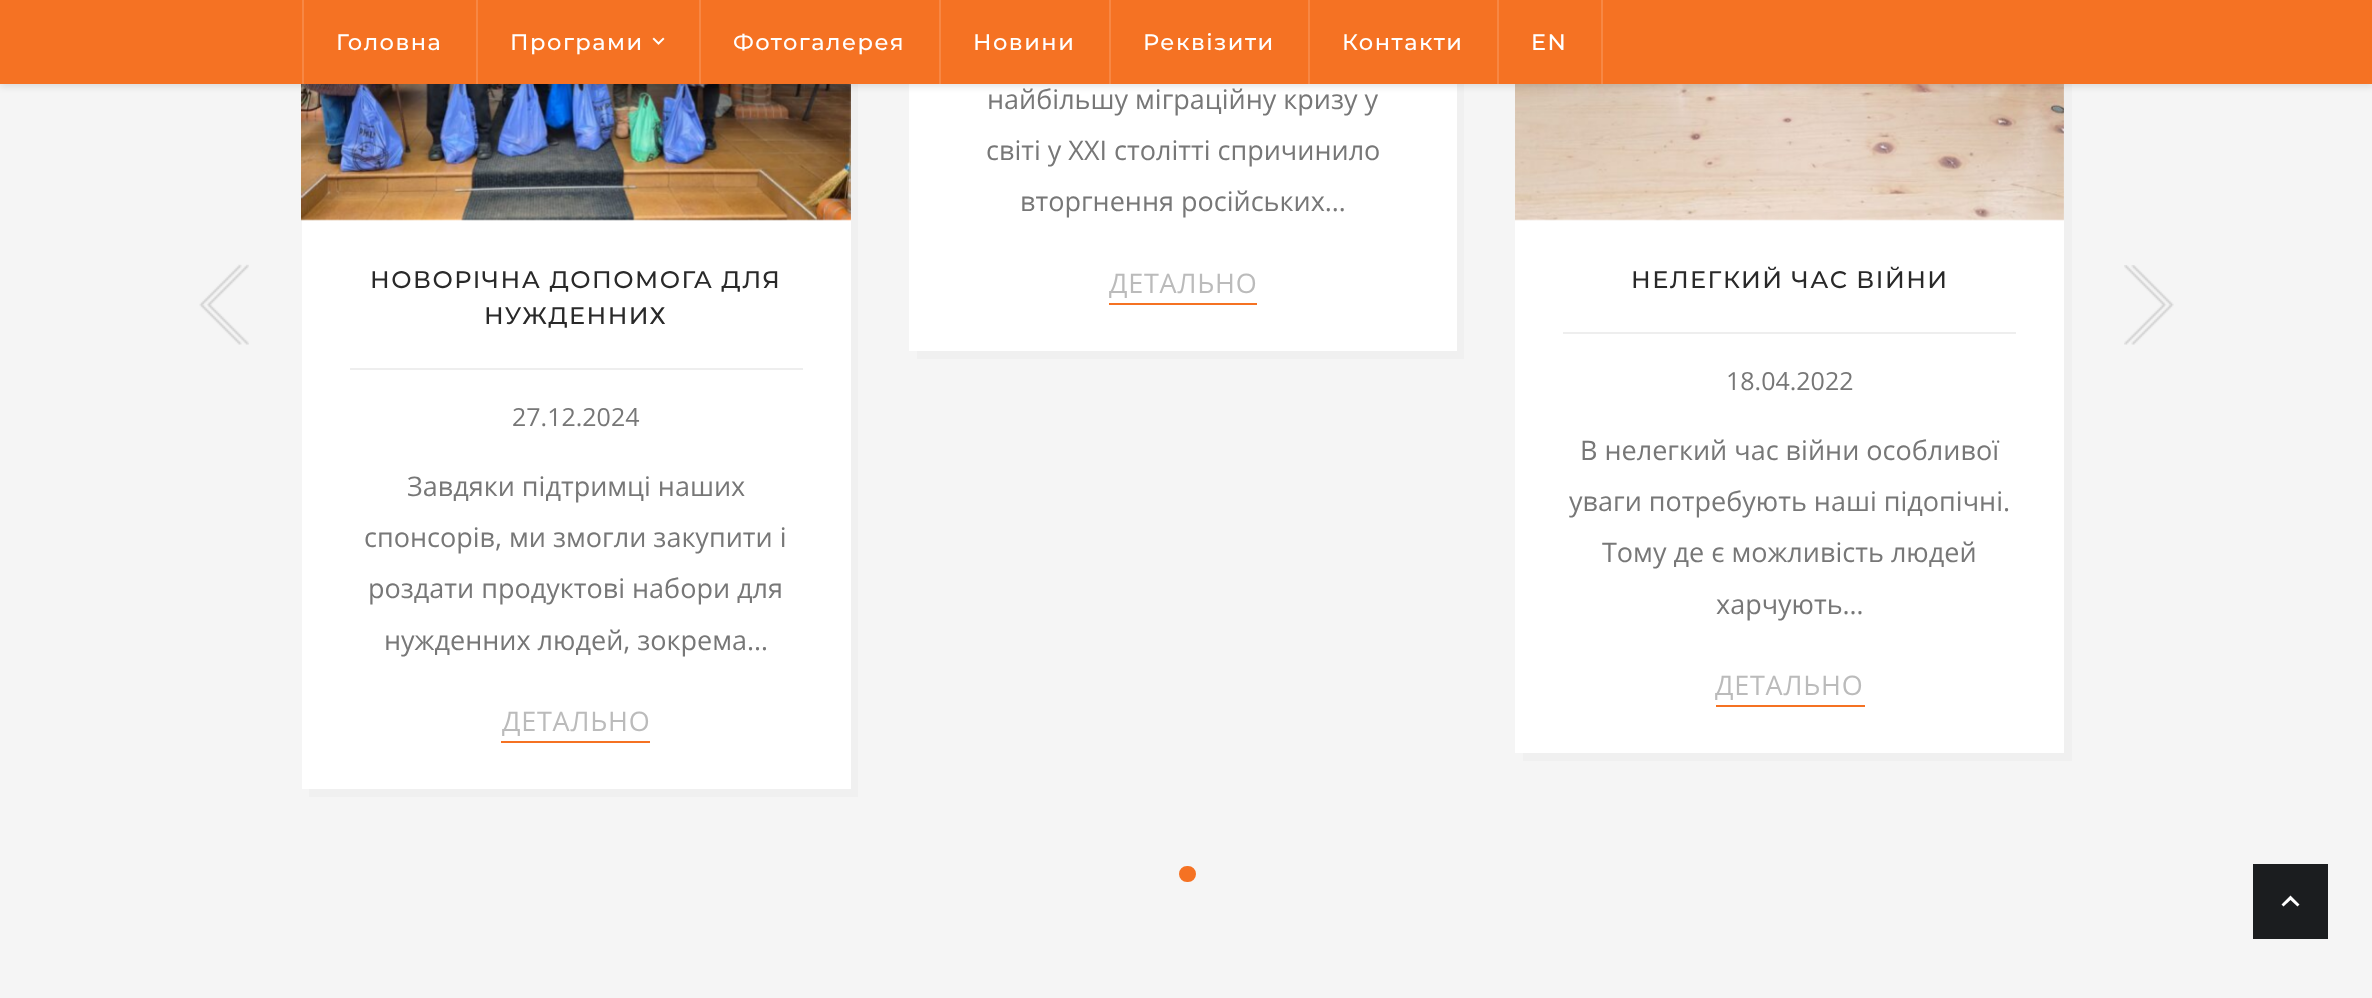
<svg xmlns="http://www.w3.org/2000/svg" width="2372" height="998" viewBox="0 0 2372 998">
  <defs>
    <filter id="blur1" x="-50%" y="-200%" width="200%" height="500%"><feGaussianBlur stdDeviation="3"/></filter>
  </defs>
  <rect width="100%" height="100%" fill="#f5f5f5"/>
  <path d="M917 351V359H1464V-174H1456V351Z" fill="#f0f0f0"/>
  <rect x="909" y="84" width="548" height="267" fill="#ffffff"/>
  <path d="M309 789V797H858V-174H850V789Z" fill="#f0f0f0"/>
  <rect x="302" y="84" width="549" height="705" fill="#ffffff"/>
  <image x="301" y="84" width="550" height="137" href="img2.png"/>
  <path d="M1523 753V761H2072V-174H2064V753Z" fill="#f0f0f0"/>
  <rect x="1515" y="84" width="549" height="669" fill="#ffffff"/>
  <image x="1515" y="84" width="549" height="137" href="img3.png"/>
  <rect x="0" y="3" width="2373" height="84" fill="#000000" fill-opacity="0.1" filter="url(#blur1)"/>
  <rect x="0" y="0" width="2372" height="84" fill="#f57223"/>
  <rect x="476" y="0" width="2" height="84" fill="#f78744"/>
  <rect x="302" y="0" width="2" height="84" fill="#f78744"/>
  <text x="336" y="50" font-family="Montserrat" font-size="22.5" font-weight="500" letter-spacing="1.5" fill="#ffffff">Головна</text>
  <rect x="699" y="0" width="2" height="84" fill="#f78744"/>
  <text x="510" y="50" font-family="Montserrat" font-size="22.5" font-weight="500" letter-spacing="1.5" fill="#ffffff">Програми</text>
  <image x="652" y="37" width="13" height="8" href="img1.png"/>
  <rect x="939" y="0" width="2" height="84" fill="#f78744"/>
  <text x="733" y="50" font-family="Montserrat" font-size="22.5" font-weight="500" letter-spacing="1.5" fill="#ffffff">Фотогалерея</text>
  <rect x="1109" y="0" width="2" height="84" fill="#f78744"/>
  <text x="973" y="50" font-family="Montserrat" font-size="22.5" font-weight="500" letter-spacing="1.5" fill="#ffffff">Новини</text>
  <rect x="1308" y="0" width="2" height="84" fill="#f78744"/>
  <text x="1143" y="50" font-family="Montserrat" font-size="22.5" font-weight="500" letter-spacing="1.5" fill="#ffffff">Реквізити</text>
  <rect x="1497" y="0" width="2" height="84" fill="#f78744"/>
  <text x="1342" y="50" font-family="Montserrat" font-size="22.5" font-weight="500" letter-spacing="1.5" fill="#ffffff">Контакти</text>
  <rect x="1601" y="0" width="2" height="84" fill="#f78744"/>
  <text x="1531" y="50" font-family="Montserrat" font-size="22.5" font-weight="500" letter-spacing="1.5" fill="#ffffff">EN</text>
  <text x="987" y="109" font-family="Open Sans" font-size="27" fill="#777777">найбільшу міграційну кризу у</text>
  <text x="986" y="160" font-family="Open Sans" font-size="27" fill="#777777">світі у ХХІ столітті спричинило</text>
  <text x="1020" y="211" font-family="Open Sans" font-size="27" fill="#777777">вторгнення російських…</text>
  <text x="1109" y="293" font-family="Open Sans" font-size="27" letter-spacing="0.75" fill="#bbbbbb">ДЕТАЛЬНО</text>
  <rect x="1109" y="303" width="148" height="2" fill="#f57223"/>
  <text x="370" y="288" font-family="Montserrat" font-size="24" font-weight="500" letter-spacing="1.5" fill="#292929">НОВОРІЧНА ДОПОМОГА ДЛЯ</text>
  <text x="484" y="324" font-family="Montserrat" font-size="24" font-weight="500" letter-spacing="1.5" fill="#292929">НУЖДЕННИХ</text>
  <rect x="350" y="368" width="453" height="2" fill="#eeeeee"/>
  <text x="512" y="426" font-family="Open Sans" font-size="25" fill="#777777">27.12.2024</text>
  <text x="407" y="496" font-family="Open Sans" font-size="27" fill="#777777">Завдяки підтримці наших</text>
  <text x="364" y="547" font-family="Open Sans" font-size="27" fill="#777777">спонсорів, ми змогли закупити і</text>
  <text x="368" y="598" font-family="Open Sans" font-size="27" fill="#777777">роздати продуктові набори для</text>
  <text x="384" y="650" font-family="Open Sans" font-size="27" fill="#777777">нужденних людей, зокрема…</text>
  <text x="502" y="731" font-family="Open Sans" font-size="27" letter-spacing="0.75" fill="#bbbbbb">ДЕТАЛЬНО</text>
  <rect x="501" y="741" width="149" height="2" fill="#f57223"/>
  <text x="1631" y="288" font-family="Montserrat" font-size="24" font-weight="500" letter-spacing="1.5" fill="#292929">НЕЛЕГКИЙ ЧАС ВІЙНИ</text>
  <rect x="1563" y="332" width="453" height="2" fill="#eeeeee"/>
  <text x="1726" y="390" font-family="Open Sans" font-size="25" fill="#777777">18.04.2022</text>
  <text x="1580" y="460" font-family="Open Sans" font-size="27" fill="#777777">В нелегкий час війни особливої</text>
  <text x="1569" y="511" font-family="Open Sans" font-size="27" fill="#777777">уваги потребують наші підопічні.</text>
  <text x="1602" y="562" font-family="Open Sans" font-size="27" fill="#777777">Тому де є можливість людей</text>
  <text x="1716" y="614" font-family="Open Sans" font-size="27" fill="#777777">харчують…</text>
  <text x="1715" y="695" font-family="Open Sans" font-size="27" letter-spacing="0.75" fill="#bbbbbb">ДЕТАЛЬНО</text>
  <rect x="1716" y="705" width="149" height="2" fill="#f57223"/>
  <image x="199" y="264" width="50" height="81" href="img4.png"/>
  <image x="2124" y="265" width="50" height="80" href="img5.png"/>
  <rect x="1180.5" y="867.5" width="14" height="13" rx="6.5" fill="#f57223" stroke="#f57223" stroke-width="3"/>
  <rect x="2253" y="864" width="75" height="75" fill="#1b1d1f"/>
  <path d="M2299.5 904.5L2297.5 906.5L2290.5 900L2283.5 906.5L2281.5 904.5L2290.5 895.5Z" fill="#ffffff"/>
</svg>
